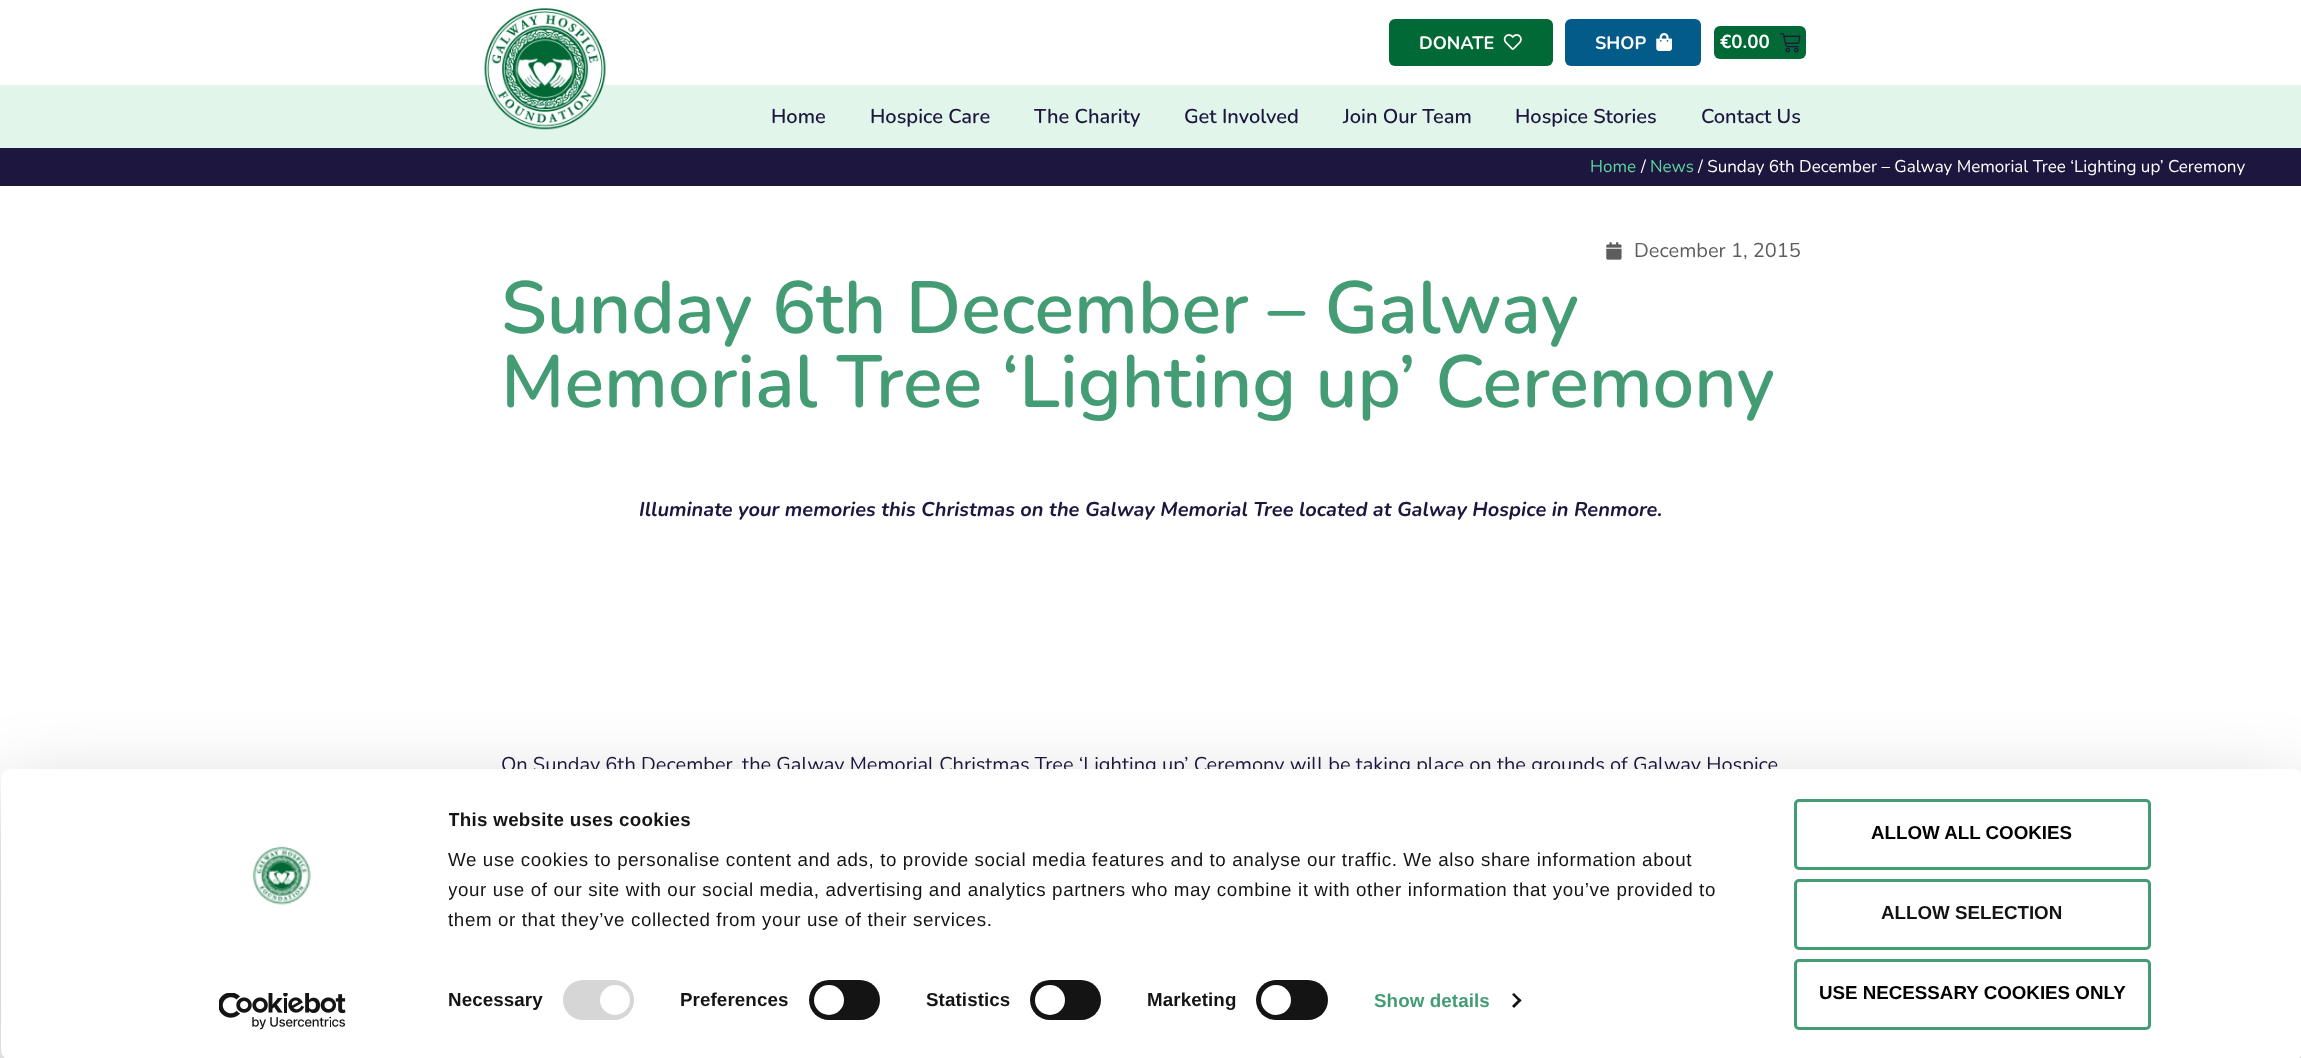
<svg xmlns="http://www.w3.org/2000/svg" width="2301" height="1058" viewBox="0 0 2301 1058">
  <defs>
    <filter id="blur1" x="-50%" y="-200%" width="200%" height="500%"><feGaussianBlur stdDeviation="44"/></filter>
    <clipPath id="clip1"><rect x="449" y="806" width="1310" height="129"/></clipPath>
  </defs>
  <rect width="100%" height="100%" fill="#ffffff"/>
  <rect x="0" y="85" width="2301" height="63" fill="#e2f5eb"/>
  <image x="484" y="8" width="122" height="122" href="img1.png"/>
  <rect x="1389" y="19" width="164" height="47" rx="6" fill="#006935"/>
  <text x="1419" y="49" font-family="Nunito" font-size="18" font-weight="bold" fill="#ffffff">DONATE</text>
  <image x="1503" y="34" width="19" height="16" href="img2.png"/>
  <rect x="1565" y="19" width="136" height="47" rx="6" fill="#035b89"/>
  <text x="1595" y="49" font-family="Nunito" font-size="18" font-weight="bold" fill="#ffffff">SHOP</text>
  <image x="1656" y="33" width="16" height="18" href="img3.png"/>
  <rect x="1714" y="26" width="92" height="33" rx="6" fill="#006935"/>
  <text x="1720" y="48" font-family="Nunito" font-size="18.75" font-weight="bold" fill="#ffffff">€0.00</text>
  <image x="1780" y="33" width="21" height="20" href="img4.png"/>
  <text x="771" y="123" font-family="Nunito" font-size="20" font-weight="600" fill="#1d173f">Home</text>
  <text x="870" y="123" font-family="Nunito" font-size="20" font-weight="600" fill="#1d173f">Hospice Care</text>
  <text x="1034" y="123" font-family="Nunito" font-size="20" font-weight="600" fill="#1d173f">The Charity</text>
  <text x="1184" y="123" font-family="Nunito" font-size="20" font-weight="600" fill="#1d173f">Get Involved</text>
  <text x="1343" y="123" font-family="Nunito" font-size="20" font-weight="600" fill="#1d173f">Join Our Team</text>
  <text x="1515" y="123" font-family="Nunito" font-size="20" font-weight="600" fill="#1d173f">Hospice Stories</text>
  <text x="1701" y="123" font-family="Nunito" font-size="20" font-weight="600" fill="#1d173f">Contact Us</text>
  <rect x="0" y="148" width="2301" height="38" fill="#1d173f"/>
  <text x="1590" y="172" font-family="Nunito" font-size="17" fill="#5dd39e">Home</text>
  <text x="1641" y="172" font-family="Nunito" font-size="17" fill="#ffffff">/</text>
  <text x="1650" y="172" font-family="Nunito" font-size="17" fill="#5dd39e">News</text>
  <text x="1698" y="172" font-family="Nunito" font-size="17" fill="#ffffff">/ Sunday 6th December – Galway Memorial Tree ‘Lighting up’ Ceremony</text>
  <image x="1606" y="242" width="16" height="18" href="img5.png"/>
  <text x="1634" y="257" font-family="Nunito" font-size="20" fill="#5d5d5d">December 1, 2015</text>
  <text x="501" y="333" font-family="Nunito" font-size="73.75" font-weight="600" fill="#449c75">Sunday 6th December – Galway</text>
  <text x="501" y="407" font-family="Nunito" font-size="73.75" font-weight="600" fill="#449c75">Memorial Tree ‘Lighting up’ Ceremony</text>
  <text x="639" y="516" font-family="Nunito" font-size="20" font-weight="bold" font-style="italic" fill="#1d173f">Illuminate your memories this Christmas on the Galway Memorial Tree located at Galway Hospice in Renmore.</text>
  <text x="501" y="771" font-family="Nunito" font-size="20" fill="#1d173f">On Sunday 6th December, the Galway Memorial Christmas Tree ‘Lighting up’ Ceremony will be taking place on the grounds of Galway Hospice</text>
  <rect x="1" y="806" width="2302" height="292" rx="10" fill="#000000" fill-opacity="0.3" filter="url(#blur1)"/>
  <rect x="1" y="769" width="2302" height="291" rx="10" fill="#ffffff"/>
  <image x="253" y="846" width="58" height="59" href="img6.png"/>
  <image x="219" y="993" width="127" height="37" href="img7.png"/>
  <g clip-path="url(#clip1)">
    <text x="448" y="826" font-family="Liberation Sans" font-size="18.75" font-weight="bold" letter-spacing="0.3" fill="#141414">This website uses cookies</text>
  </g>
  <text x="448" y="866" font-family="Liberation Sans" font-size="18.75" letter-spacing="0.62" fill="#141414">We use cookies to personalise content and ads, to provide social media features and to analyse our traffic. We also share information about</text>
  <g clip-path="url(#clip1)">
    <text x="448" y="896" font-family="Liberation Sans" font-size="18.75" letter-spacing="0.62" fill="#141414">your use of our site with our social media, advertising and analytics partners who may combine it with other information that you’ve provided to</text>
  </g>
  <text x="448" y="926" font-family="Liberation Sans" font-size="18.75" letter-spacing="0.62" fill="#141414">them or that they’ve collected from your use of their services.</text>
  <text x="448" y="1006" font-family="Liberation Sans" font-size="18.75" font-weight="bold" letter-spacing="0.1" fill="#141414">Necessary</text>
  <rect x="563" y="980" width="71" height="40" rx="20" fill="#d6d6d6"/>
  <circle cx="615" cy="1000" r="15" fill="#ffffff"/>
  <text x="680" y="1006" font-family="Liberation Sans" font-size="18.75" font-weight="bold" letter-spacing="0.1" fill="#141414">Preferences</text>
  <rect x="809" y="980" width="71" height="40" rx="20" fill="#141414"/>
  <circle cx="829" cy="1000" r="15" fill="#ffffff"/>
  <text x="926" y="1006" font-family="Liberation Sans" font-size="18.75" font-weight="bold" letter-spacing="0.1" fill="#141414">Statistics</text>
  <rect x="1030" y="980" width="71" height="40" rx="20" fill="#141414"/>
  <circle cx="1050" cy="1000" r="15" fill="#ffffff"/>
  <text x="1147" y="1006" font-family="Liberation Sans" font-size="18.75" font-weight="bold" letter-spacing="0.1" fill="#141414">Marketing</text>
  <rect x="1256" y="980" width="72" height="40" rx="20" fill="#141414"/>
  <circle cx="1276" cy="1000" r="15" fill="#ffffff"/>
  <text x="1374" y="1007" font-family="Liberation Sans" font-size="18.75" font-weight="bold" letter-spacing="0.1" fill="#449c75">Show details</text>
  <path d="M1514 993L1521.5 1000.5L1519.5 1002L1512 994.5Z" fill="#141414"/>
  <path d="M1519.5 998.5L1521.5 1000.5L1514 1008L1512 1006Z" fill="#141414"/>
  <rect x="1795.5" y="800.5" width="354" height="68" rx="3.5" fill="none" stroke="#449c75" stroke-width="3"/>
  <text x="1871" y="839" font-family="Liberation Sans" font-size="18.75" font-weight="bold" fill="#000000">ALLOW ALL COOKIES</text>
  <rect x="1795.5" y="880.5" width="354" height="68" rx="3.5" fill="none" stroke="#449c75" stroke-width="3"/>
  <text x="1881" y="919" font-family="Liberation Sans" font-size="18.75" font-weight="bold" fill="#141414">ALLOW SELECTION</text>
  <rect x="1795.5" y="960.5" width="354" height="68" rx="3.5" fill="none" stroke="#449c75" stroke-width="3"/>
  <text x="1819" y="999" font-family="Liberation Sans" font-size="18.75" font-weight="bold" fill="#000000">USE NECESSARY COOKIES ONLY</text>
</svg>
